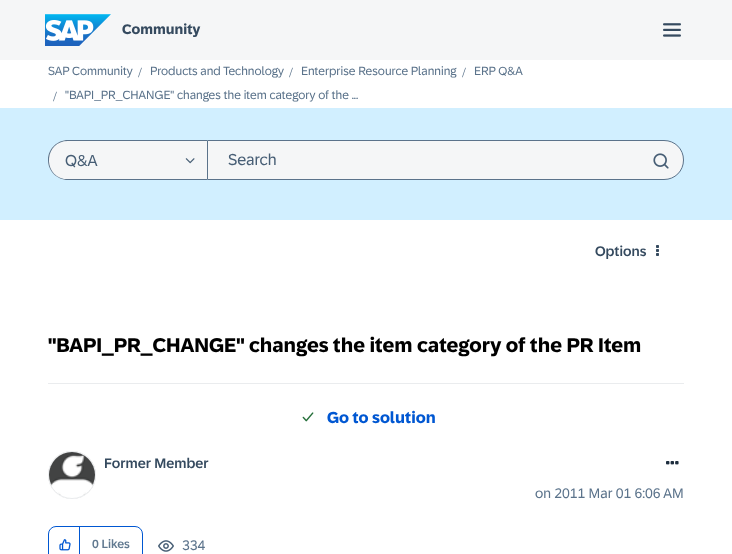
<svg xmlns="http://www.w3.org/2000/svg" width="732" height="554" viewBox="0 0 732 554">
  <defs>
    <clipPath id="clip1"><path d="M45 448H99V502H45ZM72 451C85.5 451 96 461.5 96 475C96 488.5 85.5 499 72 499C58.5 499 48 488.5 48 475C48 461.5 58.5 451 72 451Z" clip-rule="evenodd"/></clipPath>
    <filter id="blur1" x="-50%" y="-200%" width="200%" height="500%"><feGaussianBlur stdDeviation="0.5"/></filter>
  </defs>
  <rect width="100%" height="100%" fill="#ffffff"/>
  <rect x="0" y="0" width="732" height="60" fill="#f5f6f7"/>
  <image x="45" y="14" width="66" height="32" href="img1.png"/>
  <text x="122" y="34" font-family="'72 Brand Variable'" font-size="14" font-weight="bold" fill="#354a5f">Community</text>
  <image x="663" y="23" width="18" height="14" href="img2.png"/>
  <text x="48" y="75" font-family="'72 Brand Variable'" font-size="12" fill="#5b738b">SAP Community</text>
  <text x="138" y="77" font-family="Liberation Serif" font-size="14" fill="#5b738b">/</text>
  <text x="150" y="75" font-family="'72 Brand Variable'" font-size="12" fill="#5b738b">Products and Technology</text>
  <text x="289" y="77" font-family="Liberation Serif" font-size="14" fill="#5b738b">/</text>
  <text x="301" y="75" font-family="'72 Brand Variable'" font-size="12" fill="#5b738b">Enterprise Resource Planning</text>
  <text x="462" y="77" font-family="Liberation Serif" font-size="14" fill="#5b738b">/</text>
  <text x="474" y="75" font-family="'72 Brand Variable'" font-size="12" fill="#5b738b">ERP Q&amp;A</text>
  <text x="53" y="101" font-family="Liberation Serif" font-size="14" fill="#5b738b">/</text>
  <text x="65" y="99" font-family="'72 Brand Variable'" font-size="12" fill="#5b738b">"BAPI_PR_CHANGE" changes the item category of the ...</text>
  <rect x="0" y="108" width="732" height="112" fill="#d1efff"/>
  <path d="M68 140H207V180H68C57 180 48 171 48 160C48 149 57 140 68 140Z" fill="#f5f6f7"/>
  <path d="M68 140H207V180H68C57 180 48 171 48 160C48 149 57 140 68 140ZM68 141H207V179H64C42 174 45 141 68 141Z" fill="#5b738b" fill-rule="evenodd"/>
  <text x="65" y="166" font-family="'72 Brand Variable'" font-size="16" fill="#475e75">Q&amp;A</text>
  <image x="185" y="158" width="10" height="6" href="img3.png"/>
  <path d="M207.5 140.5H664C675 140.5 683.5 149 683.5 160C683.5 171 675 179.5 664 179.5H207.5Z" fill="#f5f6f7" stroke="#5b738b"/>
  <text x="228" y="165" font-family="'72 Brand Variable'" font-size="16" fill="#475e75">Search</text>
  <image x="653" y="153" width="16" height="16" href="img4.png"/>
  <text x="595" y="256" font-family="'72 Brand Variable'" font-size="14" font-weight="500" fill="#354a5f">Options</text>
  <image x="656" y="245" width="3" height="11" href="img5.png"/>
  <rect x="48" y="383" width="636" height="1" fill="#eaecee"/>
  <text x="48" y="352" font-family="'72 Brand Variable'" font-size="20" font-weight="bold" fill="#000000">"BAPI_PR_CHANGE" changes the item category of the PR Item</text>
  <image x="302" y="412" width="12" height="10" href="img6.png"/>
  <text x="327" y="423" font-family="'72 Brand Variable'" font-size="16" font-weight="bold" fill="#0057d2">Go to solution</text>
  <g clip-path="url(#clip1)">
    <rect x="48" y="451" width="48" height="48" rx="24" fill="#c4c4c4" filter="url(#blur1)"/>
  </g>
  <circle cx="72" cy="475" r="23.5" fill="none" stroke="#eaecee"/>
  <image x="49" y="452" width="46" height="43" href="img7.png"/>
  <text x="104" y="468" font-family="'72 Brand Variable'" font-size="14" font-weight="500" fill="#354a5f">Former Member</text>
  <image x="666" y="461" width="13" height="4" href="img8.png"/>
  <text x="535" y="498" font-family="'72 Brand Variable'" font-size="14" fill="#5b738b">on 2011 Mar 01 6:06 AM</text>
  <rect x="48.5" y="526.5" width="94" height="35" rx="7.5" fill="none" stroke="#0057d2"/>
  <rect x="79" y="527" width="1" height="27" fill="#0057d2"/>
  <image x="59" y="539" width="12" height="12" href="img9.png"/>
  <text x="92" y="548" font-family="'72 Brand Variable'" font-size="12" font-weight="500" fill="#617990">0 Likes</text>
  <image x="158" y="540" width="16" height="12" href="img10.png"/>
  <text x="182" y="550" font-family="'72 Brand Variable'" font-size="14" fill="#5b738b">334</text>
</svg>
